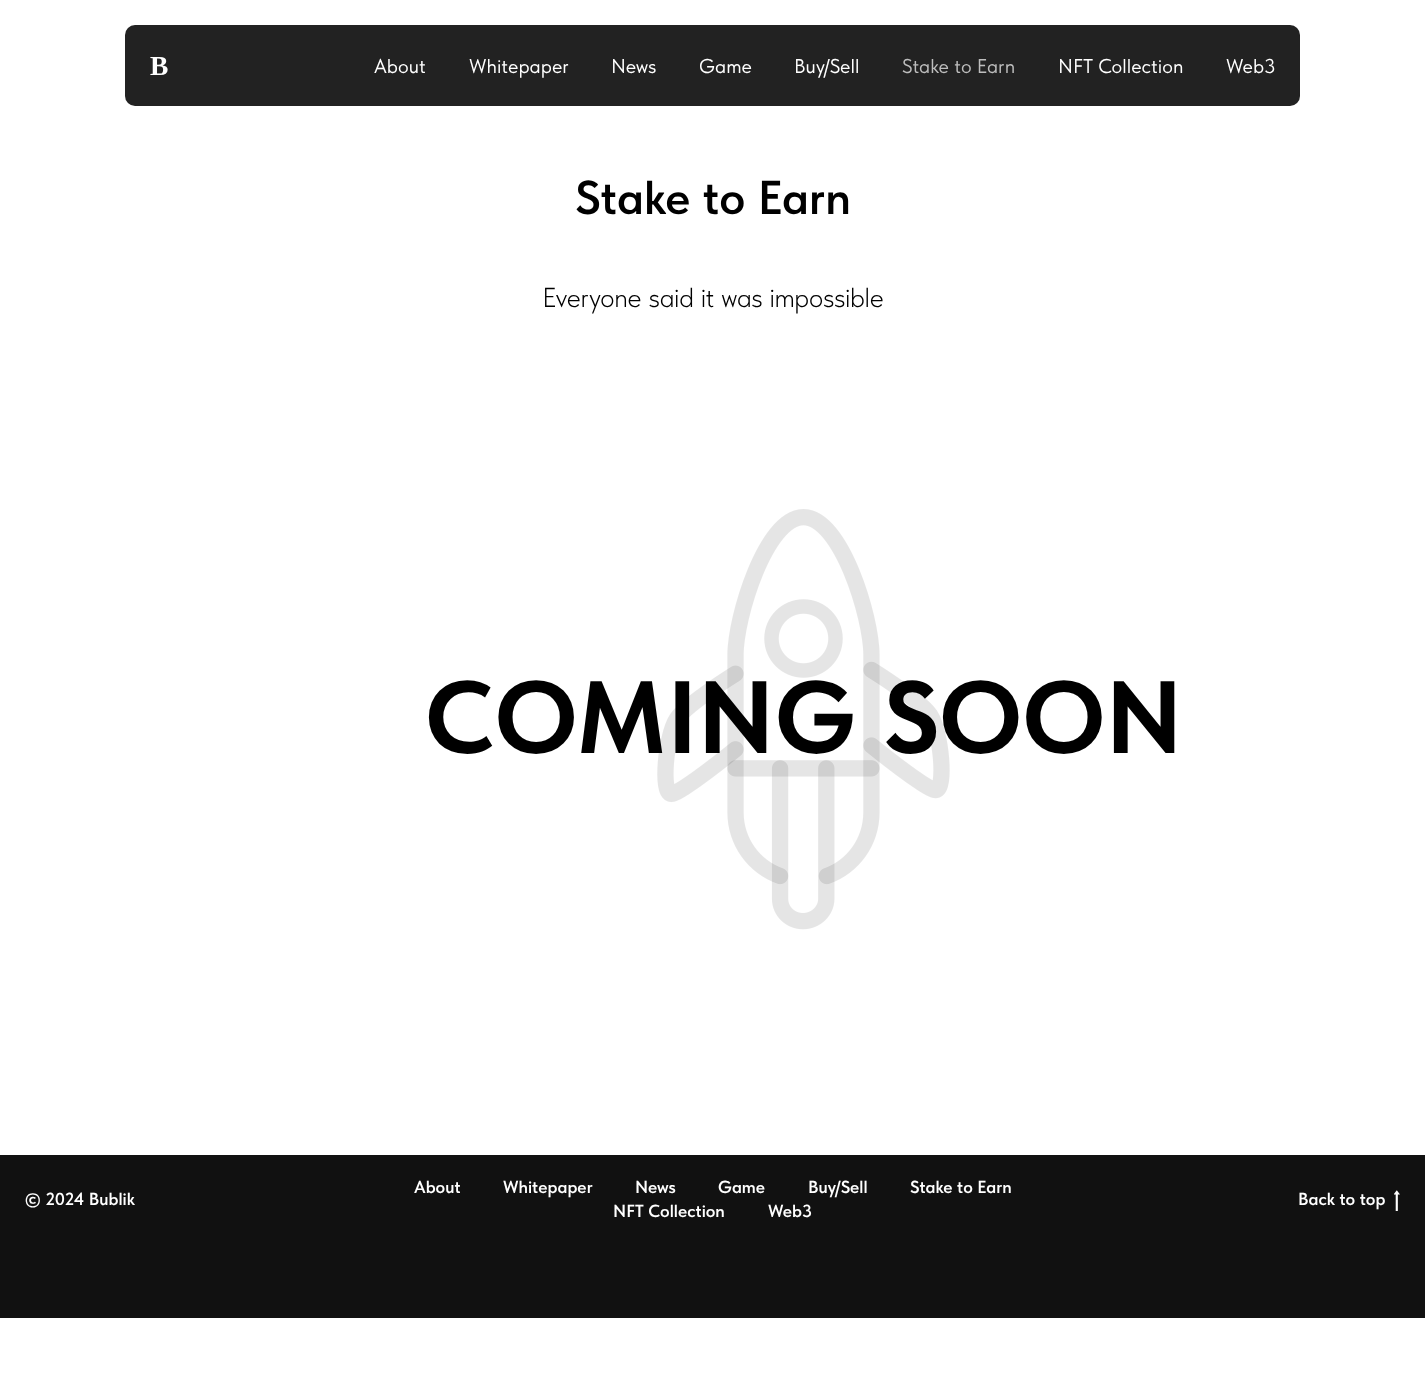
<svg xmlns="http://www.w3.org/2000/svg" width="1425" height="1373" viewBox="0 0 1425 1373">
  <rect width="100%" height="100%" fill="#ffffff"/>
  <rect x="125" y="25" width="1175" height="81" rx="10" fill="#222222"/>
  <text x="150" y="75" font-family="Liberation Serif" font-size="27.5" font-weight="bold" fill="#ffffff">B</text>
  <text x="374" y="73" font-family="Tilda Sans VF" font-size="20" fill="#ffffff">About</text>
  <text x="469" y="73" font-family="Tilda Sans VF" font-size="20" fill="#ffffff">Whitepaper</text>
  <text x="611" y="73" font-family="Tilda Sans VF" font-size="20" fill="#ffffff">News</text>
  <text x="699" y="73" font-family="Tilda Sans VF" font-size="20" fill="#ffffff">Game</text>
  <text x="794" y="73" font-family="Tilda Sans VF" font-size="20" fill="#ffffff">Buy/Sell</text>
  <text x="902" y="73" font-family="Tilda Sans VF" font-size="20" fill="#bdbdbd">Stake to Earn</text>
  <text x="1058" y="73" font-family="Tilda Sans VF" font-size="20" fill="#ffffff">NFT Collection</text>
  <text x="1226" y="73" font-family="Tilda Sans VF" font-size="20" fill="#ffffff">Web3</text>
  <text x="575" y="214" font-family="Tilda Sans VF" font-size="47.5" font-weight="600" fill="#000000">Stake to Earn</text>
  <text x="542" y="307" font-family="Tilda Sans VF" font-size="27.5" font-weight="300" fill="#000000">Everyone said it was impossible</text>
  <image x="657" y="509" width="293" height="421" href="img1.png"/>
  <text x="425" y="753" font-family="Tilda Sans VF" font-size="102.5" font-weight="bold" fill="#000000">COMING SOON</text>
  <rect x="0" y="1155" width="1425" height="163" fill="#111111"/>
  <text x="25" y="1205" font-family="Tilda Sans VF" font-size="17.5" font-weight="600" fill="#ffffff">© 2024 Bublik</text>
  <text x="414" y="1193" font-family="Tilda Sans VF" font-size="17.5" font-weight="600" fill="#ffffff">About</text>
  <text x="503" y="1193" font-family="Tilda Sans VF" font-size="17.5" font-weight="600" fill="#ffffff">Whitepaper</text>
  <text x="635" y="1193" font-family="Tilda Sans VF" font-size="17.5" font-weight="600" fill="#ffffff">News</text>
  <text x="718" y="1193" font-family="Tilda Sans VF" font-size="17.5" font-weight="600" fill="#ffffff">Game</text>
  <text x="808" y="1193" font-family="Tilda Sans VF" font-size="17.5" font-weight="600" fill="#ffffff">Buy/Sell</text>
  <text x="910" y="1193" font-family="Tilda Sans VF" font-size="17.5" font-weight="600" fill="#ffffff">Stake to Earn</text>
  <text x="613" y="1217" font-family="Tilda Sans VF" font-size="17.5" font-weight="600" fill="#ffffff">NFT Collection</text>
  <text x="768" y="1217" font-family="Tilda Sans VF" font-size="17.5" font-weight="600" fill="#ffffff">Web3</text>
  <text x="1298" y="1205" font-family="Tilda Sans VF" font-size="17.5" font-weight="600" fill="#ffffff">Back to top</text>
  <image x="1394" y="1190" width="6" height="21" href="img2.png"/>
</svg>
